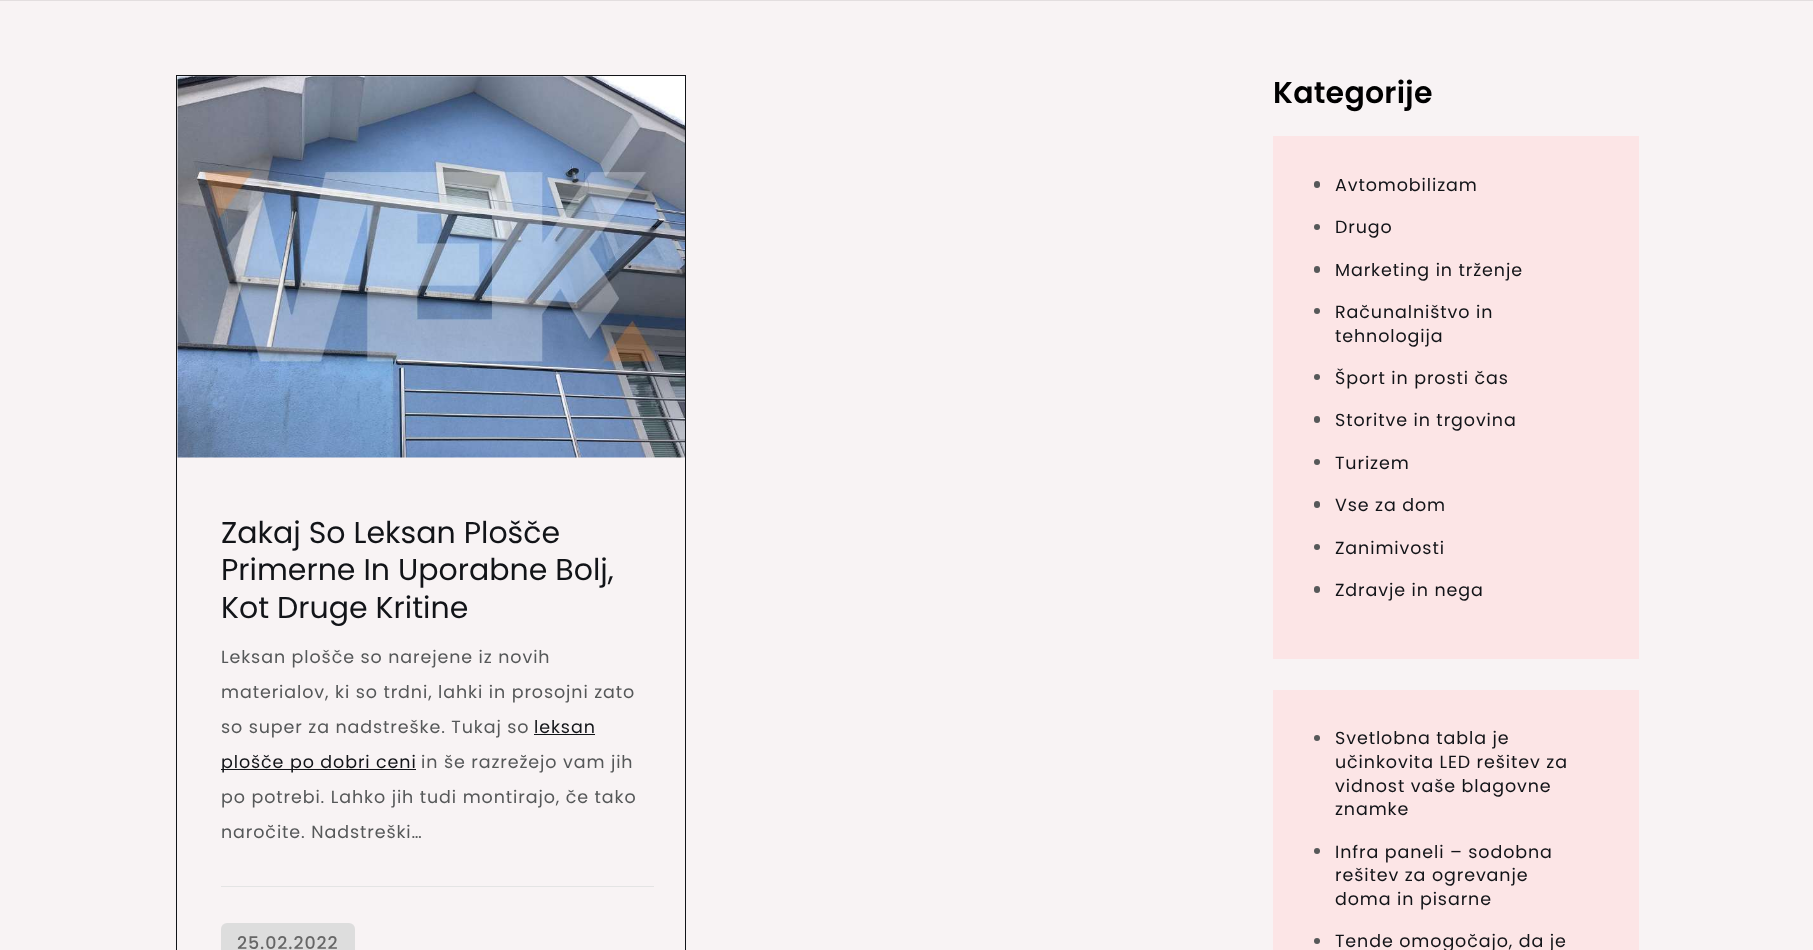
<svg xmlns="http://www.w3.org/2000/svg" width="1813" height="950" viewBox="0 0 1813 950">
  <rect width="100%" height="100%" fill="#f8f3f4"/>
  <rect x="0" y="0" width="1813" height="1" fill="#e3dedf"/>
  <rect x="176.5" y="75.5" width="509" height="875" fill="none" stroke="#121418"/>
  <image x="177" y="76" width="508" height="382" href="img1.png"/>
  <text x="221" y="543" font-family="Poppins" font-size="30" fill="#121418">Zakaj So Leksan Plošče</text>
  <text x="221" y="580" font-family="Poppins" font-size="30" fill="#121418">Primerne In Uporabne Bolj,</text>
  <text x="221" y="618" font-family="Poppins" font-size="30" fill="#121418">Kot Druge Kritine</text>
  <text x="221" y="663" font-family="Poppins" font-size="17.5" letter-spacing="0.9" fill="#565859">Leksan plošče so narejene iz novih</text>
  <text x="221" y="698" font-family="Poppins" font-size="17.5" letter-spacing="0.9" fill="#565859">materialov, ki so trdni, lahki in prosojni zato</text>
  <text x="221" y="733" font-family="Poppins" font-size="17.5" letter-spacing="0.9" fill="#565859">so super za nadstreške. Tukaj so</text>
  <text x="534" y="733" font-family="Poppins" font-size="17.5" letter-spacing="0.9" fill="#121418">leksan</text>
  <rect x="534" y="734" width="61" height="1" fill="#121418"/>
  <rect x="221" y="769" width="195" height="1" fill="#121418"/>
  <text x="221" y="768" font-family="Poppins" font-size="17.5" letter-spacing="0.9" fill="#121418">plošče po dobri ceni</text>
  <text x="421" y="768" font-family="Poppins" font-size="17.5" letter-spacing="0.9" fill="#565859">in še razrežejo vam jih</text>
  <text x="221" y="803" font-family="Poppins" font-size="17.5" letter-spacing="0.9" fill="#565859">po potrebi. Lahko jih tudi montirajo, če tako</text>
  <text x="221" y="838" font-family="Poppins" font-size="17.5" letter-spacing="0.9" fill="#565859">naročite. Nadstreški…</text>
  <rect x="221" y="886" width="433" height="1" fill="#e4e4e4"/>
  <rect x="221" y="923" width="134" height="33" rx="6" fill="#dddddd"/>
  <text x="237" y="949" font-family="Poppins" font-size="17.5" font-weight="500" letter-spacing="0.9" fill="#666666">25.02.2022</text>
  <text x="1273" y="103" font-family="Poppins" font-size="30" font-weight="600" letter-spacing="0.25" fill="#000000">Kategorije</text>
  <rect x="1273" y="136" width="366" height="523" fill="#fce5e6"/>
  <rect x="1314" y="181" width="6" height="7" rx="3" fill="#565859"/>
  <text x="1335" y="191" font-family="Poppins" font-size="17.5" letter-spacing="0.9" fill="#121418">Avtomobilizam</text>
  <circle cx="1317" cy="227" r="3" fill="#565859"/>
  <text x="1335" y="233" font-family="Poppins" font-size="17.5" letter-spacing="0.9" fill="#121418">Drugo</text>
  <rect x="1314" y="266" width="6" height="7" rx="3" fill="#565859"/>
  <text x="1335" y="276" font-family="Poppins" font-size="17.5" letter-spacing="0.9" fill="#121418">Marketing in trženje</text>
  <circle cx="1317" cy="311" r="3" fill="#565859"/>
  <text x="1335" y="318" font-family="Poppins" font-size="17.5" letter-spacing="0.9" fill="#121418">Računalništvo in</text>
  <text x="1335" y="342" font-family="Poppins" font-size="17.5" letter-spacing="0.9" fill="#121418">tehnologija</text>
  <circle cx="1317" cy="377" r="3" fill="#565859"/>
  <text x="1335" y="384" font-family="Poppins" font-size="17.5" letter-spacing="0.9" fill="#121418">Šport in prosti čas</text>
  <rect x="1314" y="416" width="6" height="7" rx="3" fill="#565859"/>
  <text x="1335" y="426" font-family="Poppins" font-size="17.5" letter-spacing="0.9" fill="#121418">Storitve in trgovina</text>
  <circle cx="1317" cy="462" r="3" fill="#565859"/>
  <text x="1335" y="469" font-family="Poppins" font-size="17.5" letter-spacing="0.9" fill="#121418">Turizem</text>
  <rect x="1314" y="501" width="6" height="7" rx="3" fill="#565859"/>
  <text x="1335" y="511" font-family="Poppins" font-size="17.5" letter-spacing="0.9" fill="#121418">Vse za dom</text>
  <circle cx="1317" cy="547" r="3" fill="#565859"/>
  <text x="1335" y="554" font-family="Poppins" font-size="17.5" letter-spacing="0.9" fill="#121418">Zanimivosti</text>
  <rect x="1314" y="586" width="6" height="7" rx="3" fill="#565859"/>
  <text x="1335" y="596" font-family="Poppins" font-size="17.5" letter-spacing="0.9" fill="#121418">Zdravje in nega</text>
  <rect x="1273" y="690" width="366" height="260" fill="#fce5e6"/>
  <circle cx="1317" cy="738" r="3" fill="#565859"/>
  <text x="1335" y="744" font-family="Poppins" font-size="17.5" letter-spacing="0.9" fill="#121418">Svetlobna tabla je</text>
  <text x="1335" y="768" font-family="Poppins" font-size="17.5" letter-spacing="0.9" fill="#121418">učinkovita LED rešitev za</text>
  <text x="1335" y="792" font-family="Poppins" font-size="17.5" letter-spacing="0.9" fill="#121418">vidnost vaše blagovne</text>
  <text x="1335" y="815" font-family="Poppins" font-size="17.5" letter-spacing="0.9" fill="#121418">znamke</text>
  <circle cx="1317" cy="851" r="3" fill="#565859"/>
  <text x="1335" y="858" font-family="Poppins" font-size="17.5" letter-spacing="0.9" fill="#121418">Infra paneli – sodobna</text>
  <text x="1335" y="881" font-family="Poppins" font-size="17.5" letter-spacing="0.9" fill="#121418">rešitev za ogrevanje</text>
  <text x="1335" y="905" font-family="Poppins" font-size="17.5" letter-spacing="0.9" fill="#121418">doma in pisarne</text>
  <circle cx="1317" cy="941" r="3" fill="#565859"/>
  <text x="1335" y="947" font-family="Poppins" font-size="17.5" letter-spacing="0.9" fill="#121418">Tende omogočajo, da je</text>
</svg>
